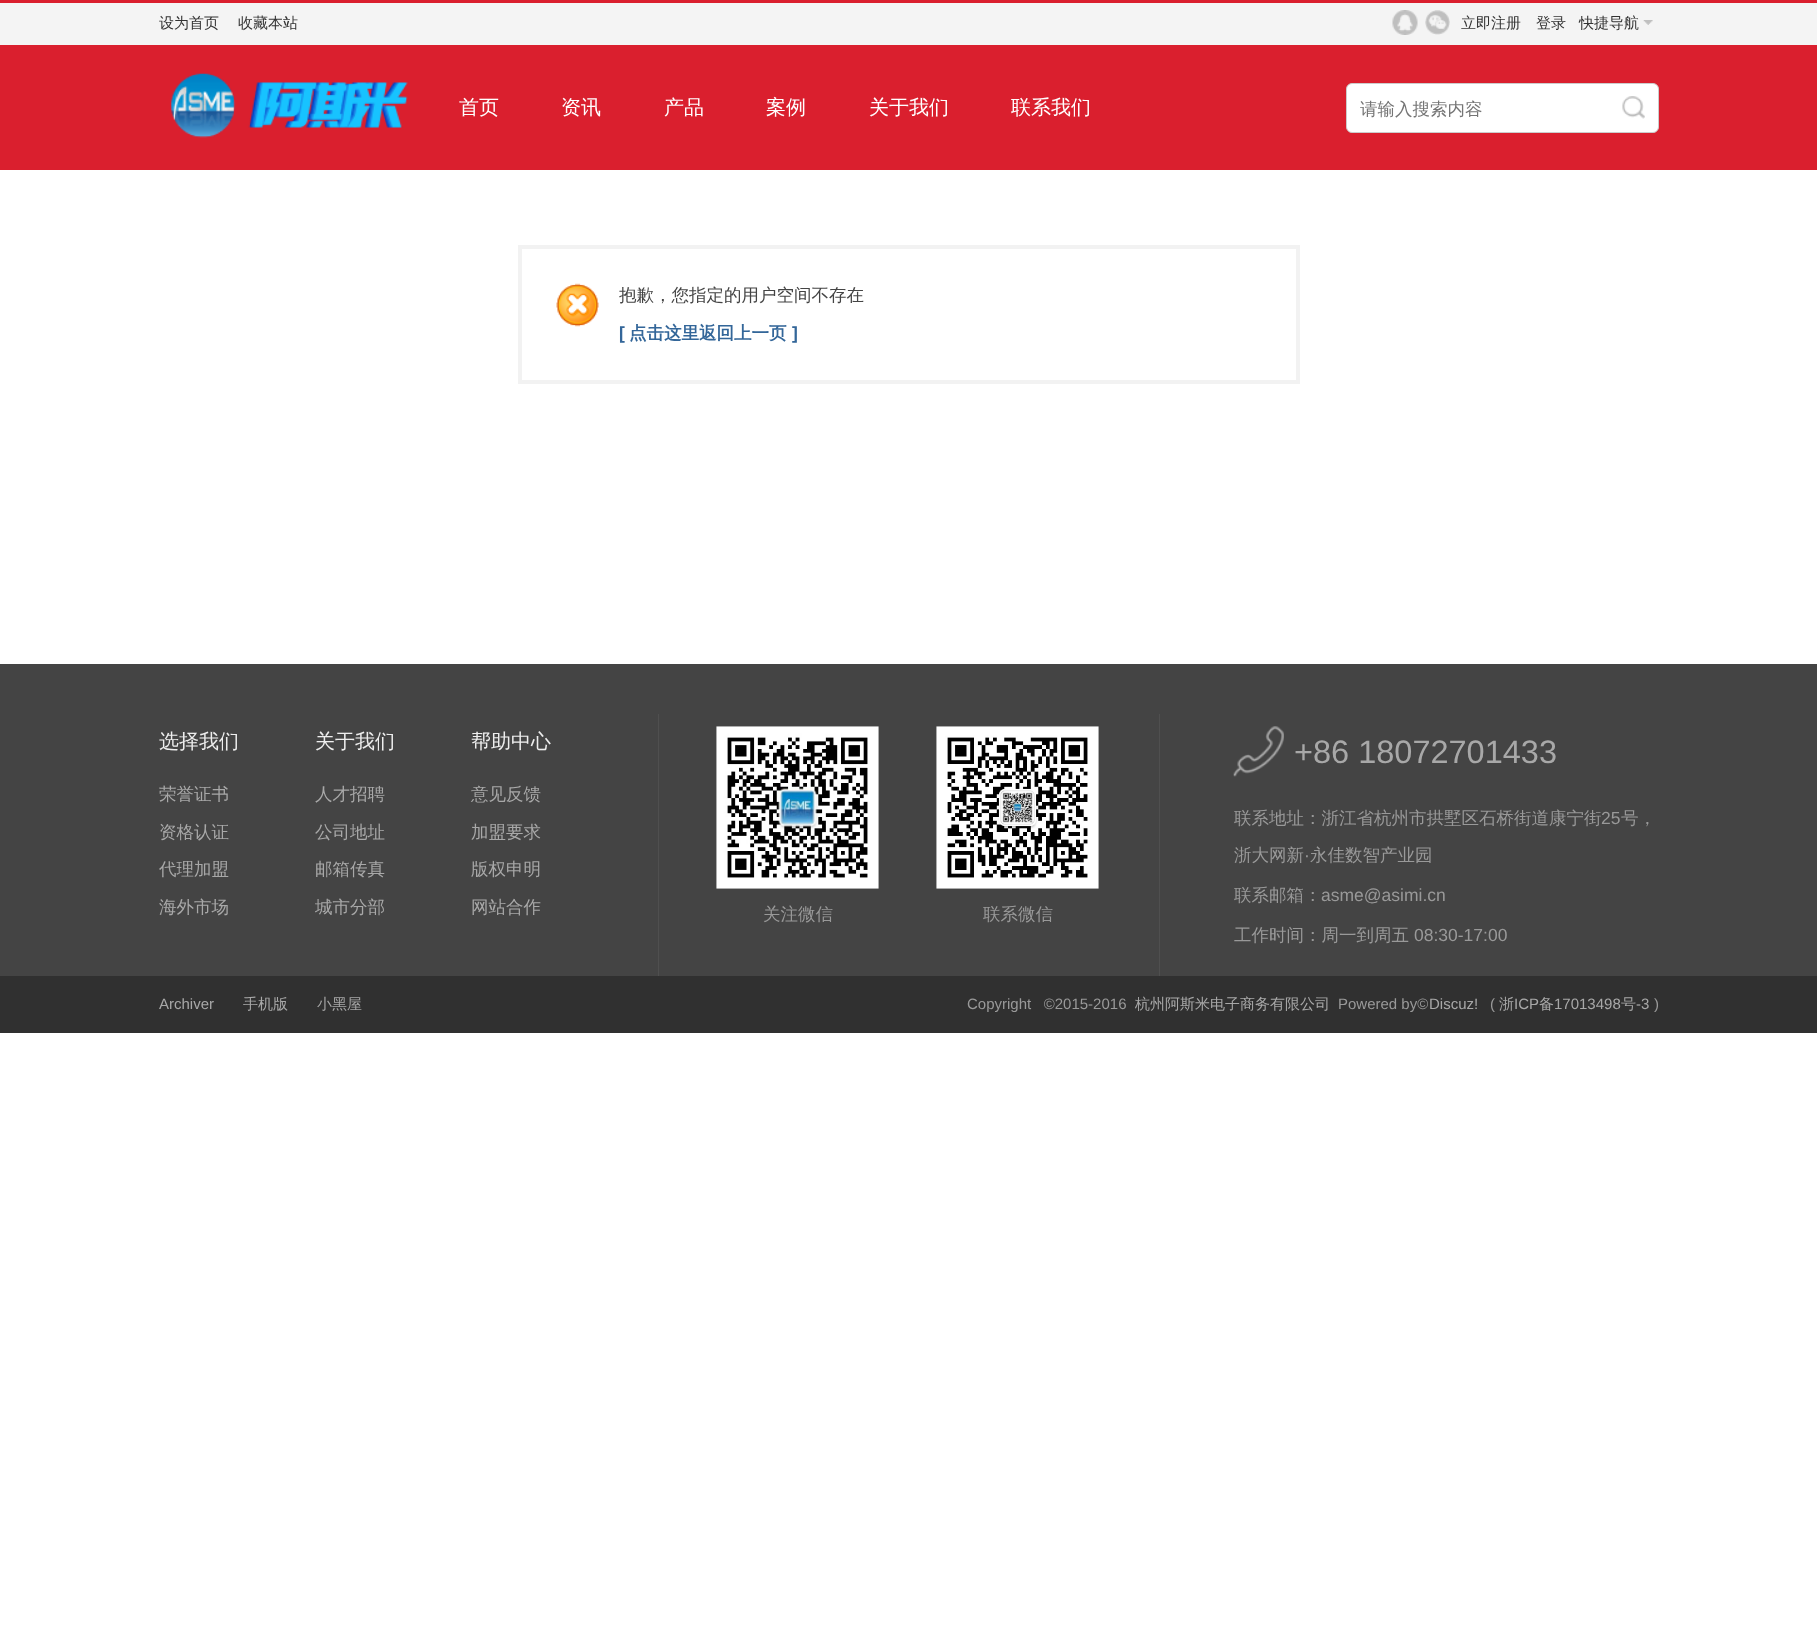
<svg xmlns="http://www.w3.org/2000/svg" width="1817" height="1648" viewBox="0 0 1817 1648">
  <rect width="100%" height="100%" fill="#ffffff"/>
  <rect x="0" y="0" width="1817" height="3" fill="#da1f2e"/>
  <rect x="0" y="3" width="1817" height="42" fill="#f4f4f4"/>
  <text x="159" y="28" font-family="WenQuanYi Zen Hei" font-size="15" font-weight="500" fill="#333333">设为首页</text>
  <text x="238" y="28" font-family="WenQuanYi Zen Hei" font-size="15" font-weight="500" fill="#333333">收藏本站</text>
  <image x="1392" y="10" width="26" height="25" href="img1.png"/>
  <image x="1425" y="10" width="25" height="25" href="img2.png"/>
  <text x="1461" y="28" font-family="WenQuanYi Zen Hei" font-size="15" font-weight="500" fill="#333333">立即注册</text>
  <text x="1536" y="28" font-family="WenQuanYi Zen Hei" font-size="15" font-weight="500" fill="#333333">登录</text>
  <image x="1643" y="20" width="10" height="5" href="img3.png"/>
  <text x="1579" y="28" font-family="WenQuanYi Zen Hei" font-size="15" font-weight="500" fill="#333333">快捷导航</text>
  <rect x="0" y="45" width="1817" height="125" fill="#da1f2e"/>
  <image x="171" y="73" width="237" height="65" href="img4.png"/>
  <text x="459" y="114" font-family="WenQuanYi Zen Hei" font-size="20" font-weight="500" fill="#ffffff">首页</text>
  <text x="561" y="114" font-family="WenQuanYi Zen Hei" font-size="20" font-weight="500" fill="#ffffff">资讯</text>
  <text x="664" y="114" font-family="WenQuanYi Zen Hei" font-size="20" font-weight="500" fill="#ffffff">产品</text>
  <text x="766" y="114" font-family="WenQuanYi Zen Hei" font-size="20" font-weight="500" fill="#ffffff">案例</text>
  <text x="869" y="114" font-family="WenQuanYi Zen Hei" font-size="20" font-weight="500" fill="#ffffff">关于我们</text>
  <text x="1011" y="114" font-family="WenQuanYi Zen Hei" font-size="20" font-weight="500" fill="#ffffff">联系我们</text>
  <rect x="1346.5" y="83.5" width="312" height="49" rx="5.5" fill="#ffffff" stroke="#cccccc"/>
  <text x="1360" y="115" font-family="WenQuanYi Zen Hei" font-size="17.5" font-weight="500" fill="#757575">请输入搜索内容</text>
  <image x="1622" y="96" width="23" height="23" href="img5.png"/>
  <rect x="520" y="247" width="778" height="135" fill="none" stroke="#f2f2f2" stroke-width="4"/>
  <image x="556" y="283" width="43" height="44" href="img6.png"/>
  <text x="619" y="301" font-family="WenQuanYi Zen Hei" font-size="17.5" font-weight="500" fill="#444444">抱歉，您指定的用户空间不存在</text>
  <text x="619" y="339" font-family="Liberation Sans" font-size="17.5" font-weight="bold" fill="#336699">[</text>
  <text x="629" y="339" font-family="WenQuanYi Zen Hei" font-size="17.5" font-weight="bold" fill="#336699">点击这里返回上一页</text>
  <text x="792" y="339" font-family="Liberation Sans" font-size="17.5" font-weight="bold" fill="#336699">]</text>
  <rect x="0" y="664" width="1817" height="312" fill="#444444"/>
  <text x="159" y="748" font-family="WenQuanYi Zen Hei" font-size="20" font-weight="500" fill="#eeeeee">选择我们</text>
  <text x="159" y="800" font-family="WenQuanYi Zen Hei" font-size="17.5" font-weight="500" fill="#a8a8a8">荣誉证书</text>
  <text x="159" y="838" font-family="WenQuanYi Zen Hei" font-size="17.5" font-weight="500" fill="#a8a8a8">资格认证</text>
  <text x="159" y="875" font-family="WenQuanYi Zen Hei" font-size="17.5" font-weight="500" fill="#a8a8a8">代理加盟</text>
  <text x="159" y="913" font-family="WenQuanYi Zen Hei" font-size="17.5" font-weight="500" fill="#a8a8a8">海外市场</text>
  <text x="315" y="748" font-family="WenQuanYi Zen Hei" font-size="20" font-weight="500" fill="#eeeeee">关于我们</text>
  <text x="315" y="800" font-family="WenQuanYi Zen Hei" font-size="17.5" font-weight="500" fill="#a8a8a8">人才招聘</text>
  <text x="315" y="838" font-family="WenQuanYi Zen Hei" font-size="17.5" font-weight="500" fill="#a8a8a8">公司地址</text>
  <text x="315" y="875" font-family="WenQuanYi Zen Hei" font-size="17.5" font-weight="500" fill="#a8a8a8">邮箱传真</text>
  <text x="315" y="913" font-family="WenQuanYi Zen Hei" font-size="17.5" font-weight="500" fill="#a8a8a8">城市分部</text>
  <text x="471" y="748" font-family="WenQuanYi Zen Hei" font-size="20" font-weight="500" fill="#eeeeee">帮助中心</text>
  <text x="471" y="800" font-family="WenQuanYi Zen Hei" font-size="17.5" font-weight="500" fill="#a8a8a8">意见反馈</text>
  <text x="471" y="838" font-family="WenQuanYi Zen Hei" font-size="17.5" font-weight="500" fill="#a8a8a8">加盟要求</text>
  <text x="471" y="875" font-family="WenQuanYi Zen Hei" font-size="17.5" font-weight="500" fill="#a8a8a8">版权申明</text>
  <text x="471" y="913" font-family="WenQuanYi Zen Hei" font-size="17.5" font-weight="500" fill="#a8a8a8">网站合作</text>
  <rect x="1159" y="714" width="1" height="262" fill="#4f4f4f"/>
  <rect x="658" y="714" width="1" height="262" fill="#4f4f4f"/>
  <image x="716" y="726" width="163" height="163" href="img7.png"/>
  <text x="763" y="920" font-family="WenQuanYi Zen Hei" font-size="17.5" font-weight="500" fill="#999999">关注微信</text>
  <image x="936" y="726" width="163" height="163" href="img8.png"/>
  <text x="983" y="920" font-family="WenQuanYi Zen Hei" font-size="17.5" font-weight="500" fill="#999999">联系微信</text>
  <image x="1233" y="726" width="51" height="51" href="img9.png"/>
  <text x="1294" y="763" font-family="Liberation Sans" font-size="32.5" fill="#a8a8a8">+86 18072701433</text>
  <text x="1234" y="824" font-family="WenQuanYi Zen Hei" font-size="17.5" font-weight="500" fill="#999999">联系地址：浙江省杭州市拱墅区石桥街道康宁街</text>
  <text x="1601" y="824" font-family="Liberation Sans" font-size="17.5" fill="#999999">25</text>
  <text x="1621" y="824" font-family="WenQuanYi Zen Hei" font-size="17.5" font-weight="500" fill="#999999">号，</text>
  <text x="1234" y="861" font-family="WenQuanYi Zen Hei" font-size="17.5" font-weight="500" fill="#999999">浙大网新</text>
  <text x="1304" y="861" font-family="Liberation Sans" font-size="17.5" fill="#999999">·</text>
  <text x="1310" y="861" font-family="WenQuanYi Zen Hei" font-size="17.5" font-weight="500" fill="#999999">永佳数智产业园</text>
  <text x="1234" y="901" font-family="WenQuanYi Zen Hei" font-size="17.5" font-weight="500" fill="#999999">联系邮箱：</text>
  <text x="1321" y="901" font-family="Liberation Sans" font-size="17.5" fill="#999999">asme@asimi.cn</text>
  <text x="1234" y="941" font-family="WenQuanYi Zen Hei" font-size="17.5" font-weight="500" fill="#999999">工作时间：周一到周五</text>
  <text x="1414" y="941" font-family="Liberation Sans" font-size="17.5" fill="#999999">08:30-17:00</text>
  <rect x="0" y="976" width="1817" height="57" fill="#303030"/>
  <text x="159" y="1009" font-family="Liberation Sans" font-size="15" fill="#a8a8a8">Archiver</text>
  <text x="243" y="1009" font-family="WenQuanYi Zen Hei" font-size="15" font-weight="500" fill="#a8a8a8">手机版</text>
  <text x="317" y="1009" font-family="WenQuanYi Zen Hei" font-size="15" font-weight="500" fill="#a8a8a8">小黑屋</text>
  <text x="967" y="1009" font-family="Liberation Sans" font-size="15" fill="#999999" xml:space="preserve">Copyright   ©2015-2016</text>
  <text x="1135" y="1009" font-family="WenQuanYi Zen Hei" font-size="15" font-weight="500" fill="#a8a8a8">杭州阿斯米电子商务有限公司</text>
  <text x="1338" y="1009" font-family="Liberation Sans" font-size="15" fill="#999999">Powered by©</text>
  <text x="1429" y="1009" font-family="Liberation Sans" font-size="15" fill="#a8a8a8">Discuz!</text>
  <text x="1490" y="1009" font-family="Liberation Sans" font-size="15" fill="#999999">(</text>
  <text x="1499" y="1009" font-family="WenQuanYi Zen Hei" font-size="15" font-weight="500" fill="#a8a8a8">浙</text>
  <text x="1514" y="1009" font-family="Liberation Sans" font-size="15" fill="#a8a8a8">ICP</text>
  <text x="1539" y="1009" font-family="WenQuanYi Zen Hei" font-size="15" font-weight="500" fill="#a8a8a8">备</text>
  <text x="1554" y="1009" font-family="Liberation Sans" font-size="15" fill="#a8a8a8">17013498</text>
  <text x="1621" y="1009" font-family="WenQuanYi Zen Hei" font-size="15" font-weight="500" fill="#a8a8a8">号</text>
  <text x="1636" y="1009" font-family="Liberation Sans" font-size="15" fill="#a8a8a8">-3</text>
  <text x="1654" y="1009" font-family="Liberation Sans" font-size="15" fill="#999999">)</text>
</svg>
